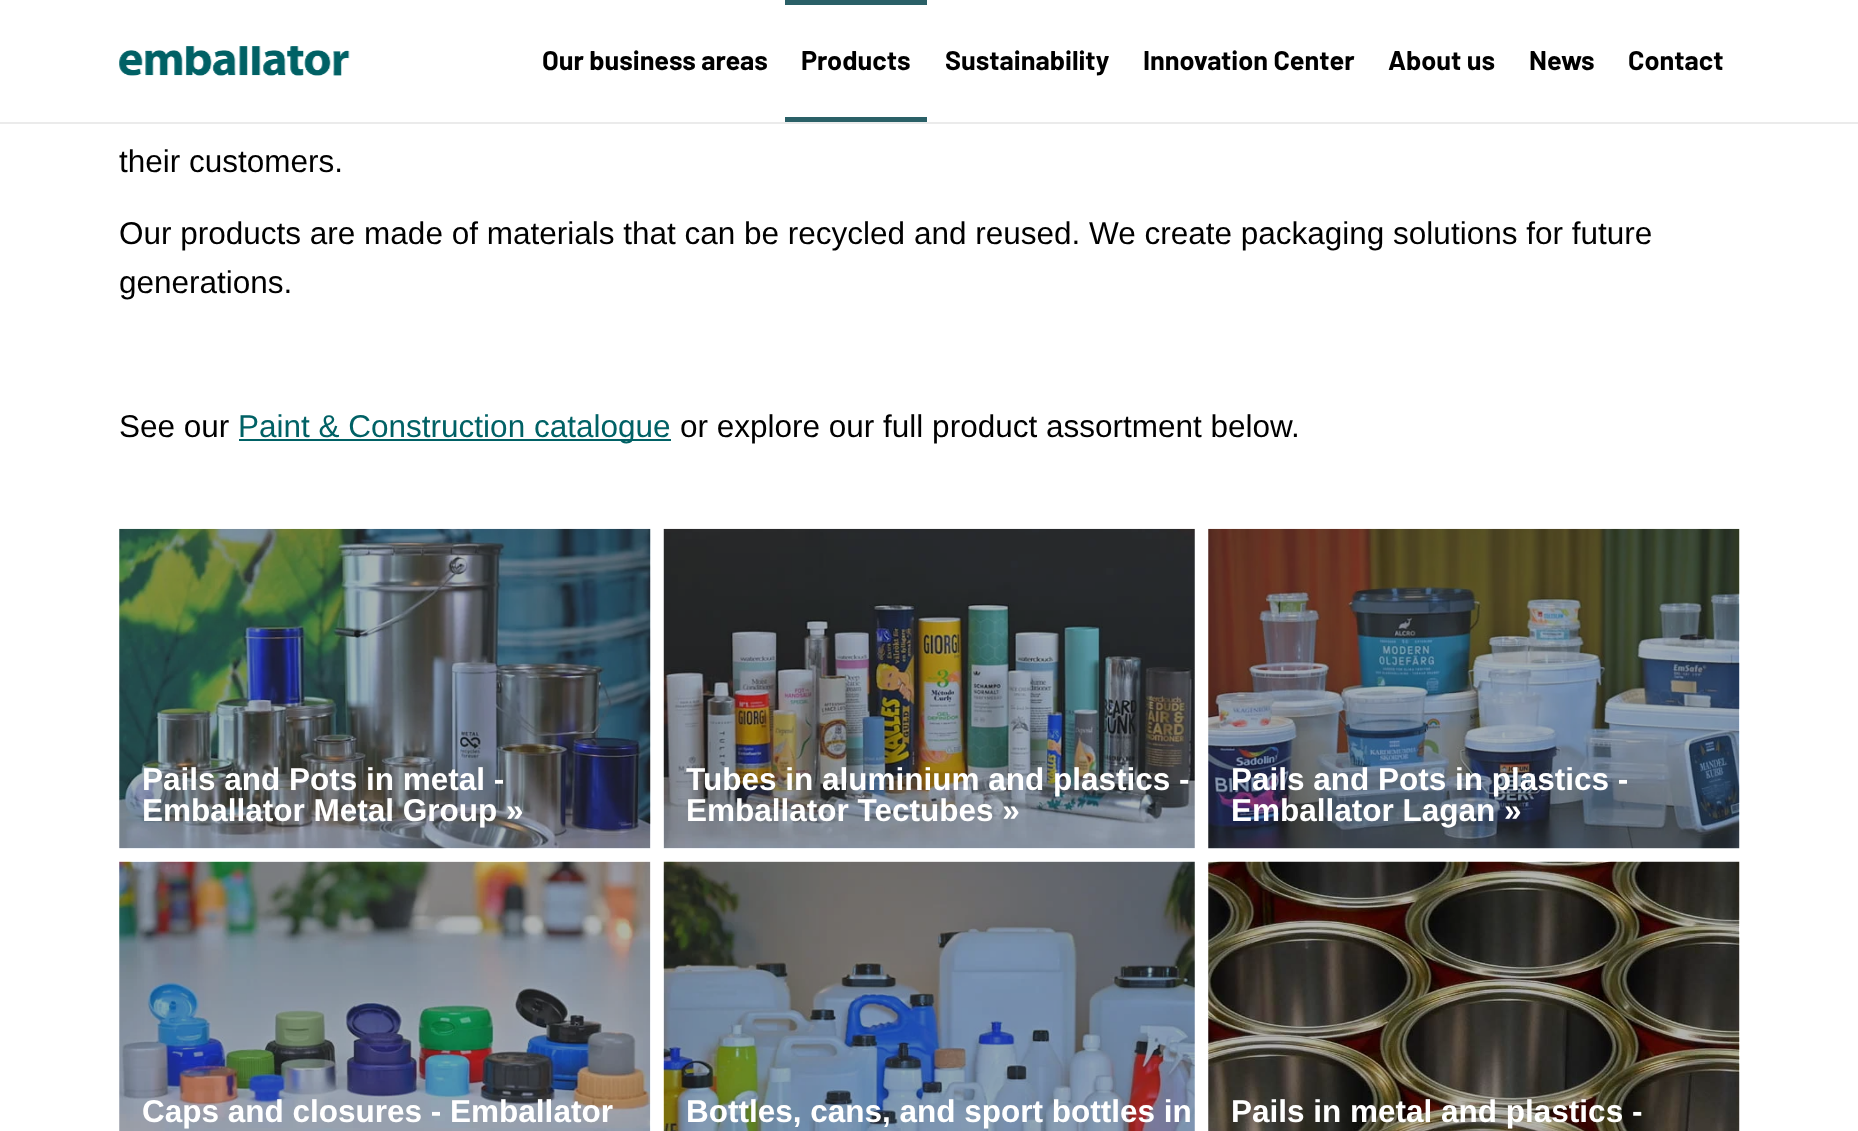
<svg xmlns="http://www.w3.org/2000/svg" width="1858" height="1131" viewBox="0 0 1858 1131">
  <rect width="100%" height="100%" fill="#ffffff"/>
  <rect x="0" y="122" width="1858" height="2" fill="#000000" fill-opacity="0.08"/>
  <image x="119" y="46" width="231" height="30" href="img1.png"/>
  <text x="542" y="70" font-family="Barlow" font-size="27" font-weight="bold" fill="#000000">Our business areas</text>
  <rect x="785" y="0" width="142" height="5" fill="#2a6067"/>
  <text x="801" y="70" font-family="Barlow" font-size="27" font-weight="bold" fill="#000000">Products</text>
  <rect x="785" y="117" width="142" height="5" fill="#2a6067"/>
  <text x="945" y="70" font-family="Barlow" font-size="27" font-weight="bold" fill="#000000">Sustainability</text>
  <text x="1143" y="70" font-family="Barlow" font-size="27" font-weight="bold" fill="#000000">Innovation Center</text>
  <text x="1388" y="70" font-family="Barlow" font-size="27" font-weight="bold" fill="#000000">About us</text>
  <text x="1529" y="70" font-family="Barlow" font-size="27" font-weight="bold" fill="#000000">News</text>
  <text x="1628" y="70" font-family="Barlow" font-size="27" font-weight="bold" fill="#000000">Contact</text>
  <text x="119" y="172" font-family="Liberation Sans" font-size="31.5" fill="#000000">their customers.</text>
  <text x="119" y="244" font-family="Liberation Sans" font-size="31.5" fill="#000000">Our products are made of materials that can be recycled and reused. We create packaging solutions for future</text>
  <text x="119" y="293" font-family="Liberation Sans" font-size="31.5" fill="#000000">generations.</text>
  <text x="119" y="437" font-family="Liberation Sans" font-size="31.5" fill="#000000">See our</text>
  <rect x="239" y="439" width="432" height="2" fill="#006165"/>
  <text x="238" y="437" font-family="Liberation Sans" font-size="31.5" fill="#006165">Paint &amp; Construction catalogue</text>
  <text x="680" y="437" font-family="Liberation Sans" font-size="31.5" fill="#000000">or explore our full product assortment below.</text>
  <image x="119" y="528" width="532" height="321" href="img2.png"/>
  <text x="142" y="790" font-family="Liberation Sans" font-size="31.5" font-weight="bold" fill="#ffffff">Pails and Pots in metal -</text>
  <text x="142" y="821" font-family="Liberation Sans" font-size="31.5" font-weight="bold" fill="#ffffff">Emballator Metal Group »</text>
  <image x="663" y="528" width="532" height="321" href="img3.png"/>
  <text x="686" y="790" font-family="Liberation Sans" font-size="31.5" font-weight="bold" fill="#ffffff">Tubes in aluminium and plastics -</text>
  <text x="686" y="821" font-family="Liberation Sans" font-size="31.5" font-weight="bold" fill="#ffffff">Emballator Tectubes »</text>
  <image x="1208" y="528" width="532" height="321" href="img4.png"/>
  <text x="1231" y="790" font-family="Liberation Sans" font-size="31.5" font-weight="bold" fill="#ffffff">Pails and Pots in plastics -</text>
  <text x="1231" y="821" font-family="Liberation Sans" font-size="31.5" font-weight="bold" fill="#ffffff">Emballator Lagan »</text>
  <image x="119" y="861" width="532" height="270" href="img5.png"/>
  <text x="142" y="1122" font-family="Liberation Sans" font-size="31.5" font-weight="bold" fill="#ffffff">Caps and closures - Emballator</text>
  <image x="663" y="861" width="532" height="270" href="img6.png"/>
  <text x="686" y="1122" font-family="Liberation Sans" font-size="31.5" font-weight="bold" fill="#ffffff">Bottles, cans, and sport bottles in</text>
  <image x="1208" y="861" width="532" height="270" href="img7.png"/>
  <text x="1231" y="1122" font-family="Liberation Sans" font-size="31.5" font-weight="bold" fill="#ffffff">Pails in metal and plastics -</text>
</svg>
